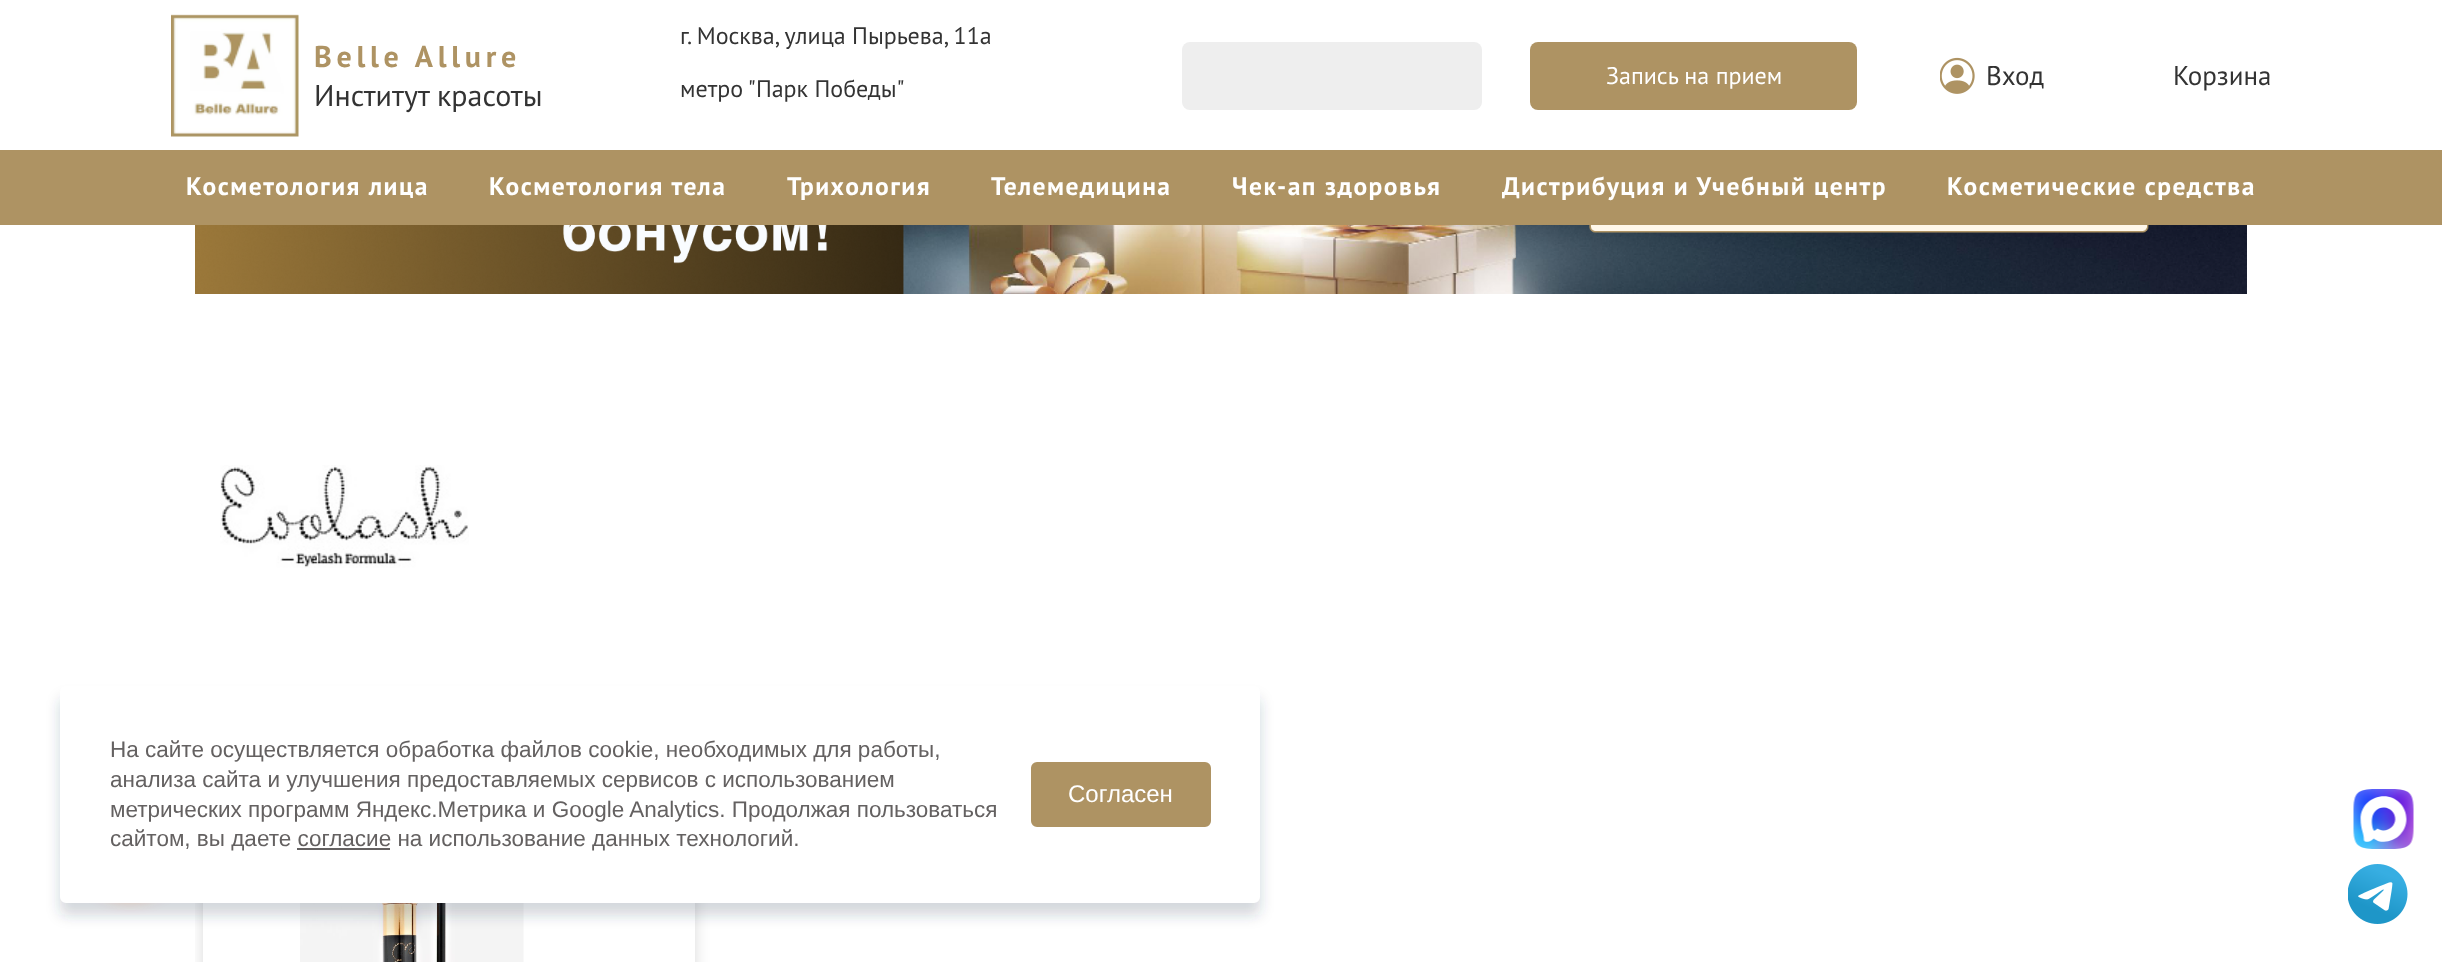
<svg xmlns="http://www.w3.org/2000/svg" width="2442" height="962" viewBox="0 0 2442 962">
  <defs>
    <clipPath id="clip1"><rect x="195" y="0" width="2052" height="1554"/></clipPath>
    <clipPath id="clip2"><path d="M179 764H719V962H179ZM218 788H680C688.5 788 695 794.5 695 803V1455C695 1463.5 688.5 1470 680 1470H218C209.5 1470 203 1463.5 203 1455V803C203 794.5 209.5 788 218 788Z" clip-rule="evenodd"/></clipPath>
    <filter id="blur1" x="-50%" y="-200%" width="200%" height="500%"><feGaussianBlur stdDeviation="7.5"/></filter>
    <filter id="blur2" x="-50%" y="-200%" width="200%" height="500%"><feGaussianBlur stdDeviation="7"/></filter>
  </defs>
  <rect width="100%" height="100%" fill="#ffffff"/>
  <image x="171" y="14" width="128" height="123" href="img1.png"/>
  <text x="314" y="67" font-family="PT Sans" font-size="30" font-weight="bold" letter-spacing="4.75" fill="#ae9363">Belle Allure</text>
  <text x="314" y="106" font-family="PT Sans" font-size="30" fill="#333333">Институт красоты</text>
  <text x="680" y="44" font-family="PT Sans" font-size="24" fill="#333333">г. Москва, улица Пырьева, 11а</text>
  <text x="680" y="97" font-family="PT Sans" font-size="24" fill="#333333">метро "Парк Победы"</text>
  <rect x="1182" y="42" width="300" height="68" rx="8" fill="#eeeeee"/>
  <rect x="1530" y="42" width="327" height="68" rx="8" fill="#ae9363"/>
  <text x="1606" y="84" font-family="PT Sans" font-size="24" fill="#ffffff">Запись на прием</text>
  <image x="1940" y="57" width="35" height="37" href="img2.png"/>
  <text x="1986" y="85" font-family="PT Sans" font-size="27" fill="#333333">Вход</text>
  <text x="2173" y="85" font-family="PT Sans" font-size="27" fill="#333333">Корзина</text>
  <rect x="0" y="150" width="2442" height="75" fill="#ae9363"/>
  <text x="186" y="195" font-family="PT Sans" font-size="25.5" font-weight="bold" letter-spacing="1.5" fill="#ffffff">Косметология лица</text>
  <text x="489" y="195" font-family="PT Sans" font-size="25.5" font-weight="bold" letter-spacing="1.5" fill="#ffffff">Косметология тела</text>
  <text x="787" y="195" font-family="PT Sans" font-size="25.5" font-weight="bold" letter-spacing="1.5" fill="#ffffff">Трихология</text>
  <text x="991" y="195" font-family="PT Sans" font-size="25.5" font-weight="bold" letter-spacing="1.5" fill="#ffffff">Телемедицина</text>
  <text x="1232" y="195" font-family="PT Sans" font-size="25.5" font-weight="bold" letter-spacing="1.5" fill="#ffffff">Чек-ап здоровья</text>
  <text x="1502" y="195" font-family="PT Sans" font-size="25.5" font-weight="bold" letter-spacing="1.5" fill="#ffffff">Дистрибуция и Учебный центр</text>
  <text x="1947" y="195" font-family="PT Sans" font-size="25.5" font-weight="bold" letter-spacing="1.5" fill="#ffffff">Косметические средства</text>
  <image x="195" y="225" width="2052" height="69" href="img3.png"/>
  <image x="220" y="465" width="249" height="103" href="img4.png"/>
  <g clip-path="url(#clip1)">
    <g clip-path="url(#clip2)">
      <rect x="203" y="788" width="492" height="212" rx="15" fill="#000000" fill-opacity="0.15" filter="url(#blur1)"/>
    </g>
  </g>
  <image x="300" y="903" width="224" height="59" href="img5.png"/>
  <rect x="60" y="698" width="1200" height="217" rx="6" fill="#223c50" fill-opacity="0.2" filter="url(#blur2)"/>
  <rect x="74" y="786" width="112" height="113" rx="56" fill="#f95c18" fill-opacity="0.3" filter="url(#blur1)"/>
  <rect x="61" y="687" width="1198" height="215" rx="5" fill="#ffffff" stroke="#ffffff" stroke-width="2"/>
  <text x="110" y="757" font-family="Liberation Sans" font-size="22.5" fill="#646161">На сайте осуществляется обработка файлов cookie, необходимых для работы,</text>
  <text x="110" y="787" font-family="Liberation Sans" font-size="22.5" fill="#646161">анализа сайта и улучшения предоставляемых сервисов с использованием</text>
  <text x="110" y="817" font-family="Liberation Sans" font-size="22.5" fill="#646161">метрических программ Яндекс.Метрика и Google Analytics. Продолжая пользоваться</text>
  <text x="110" y="846" font-family="Liberation Sans" font-size="22.5" fill="#646161">сайтом, вы даете согласие на использование данных технологий.</text>
  <rect x="297" y="848" width="93" height="2" fill="#646161"/>
  <rect x="1032" y="763" width="178" height="63" rx="5" fill="#ae9363" stroke="#ae9363" stroke-width="2"/>
  <text x="1068" y="802" font-family="Liberation Sans" font-size="24" fill="#ffffff">Согласен</text>
  <image x="2353" y="789" width="61" height="60" href="img6.png"/>
  <image x="2348" y="864" width="60" height="60" href="img7.png"/>
</svg>
